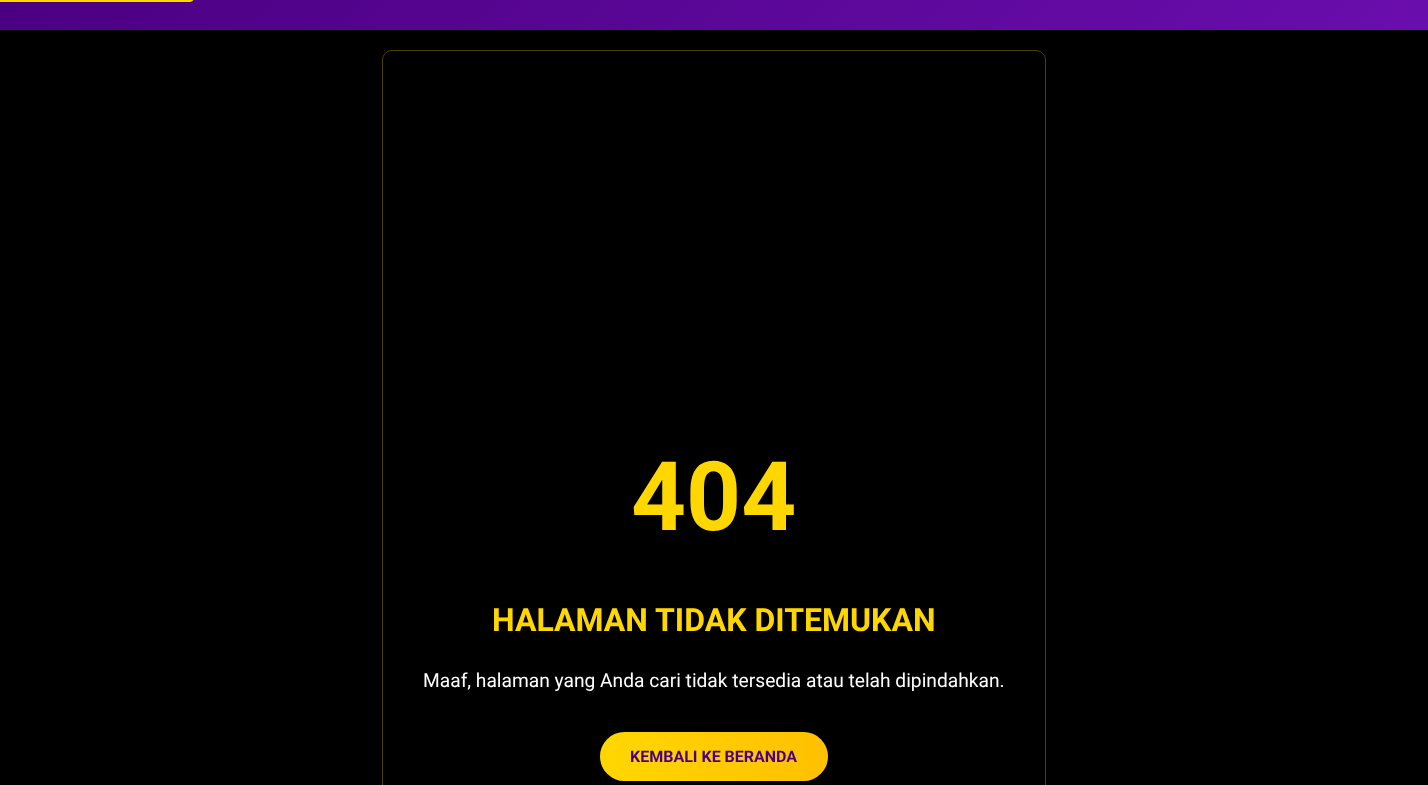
<svg xmlns="http://www.w3.org/2000/svg" width="1428" height="785" viewBox="0 0 1428 785">
  <defs>
    <linearGradient id="g1" gradientUnits="userSpaceOnUse" x1="349" y1="-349" x2="1079" y2="380"><stop offset="0" stop-color="#4b0082"/><stop offset="1" stop-color="#6a0dad"/></linearGradient>
    <linearGradient id="g2" gradientUnits="userSpaceOnUse" x1="600" y1="757" x2="828" y2="757"><stop offset="0" stop-color="#ffd700"/><stop offset="1" stop-color="#ffc000"/></linearGradient>
  </defs>
  <rect width="100%" height="100%" fill="#000000"/>
  <rect x="0" y="0" width="1428" height="30" fill="url(#g1)"/>
  <path d="M0-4H194V-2C194 0 192 2 190 2H0Z" fill="#ffd700"/>
  <rect x="382.5" y="50.5" width="663" height="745" rx="9.5" fill="none" stroke="#4d4100"/>
  <text x="631" y="530" font-family="Roboto" font-size="96" font-weight="bold" fill="#ffd700">404</text>
  <text x="492" y="631" font-family="Roboto" font-size="32" font-weight="bold" fill="#ffd700">HALAMAN TIDAK DITEMUKAN</text>
  <text x="423" y="687" font-family="Roboto" font-size="19.2" fill="#ffffff">Maaf, halaman yang Anda cari tidak tersedia atau telah dipindahkan.</text>
  <rect x="600" y="732" width="228" height="49" rx="24.5" fill="url(#g2)"/>
  <text x="630" y="762" font-family="Roboto" font-size="16" font-weight="bold" fill="#4b0082">KEMBALI KE BERANDA</text>
</svg>
